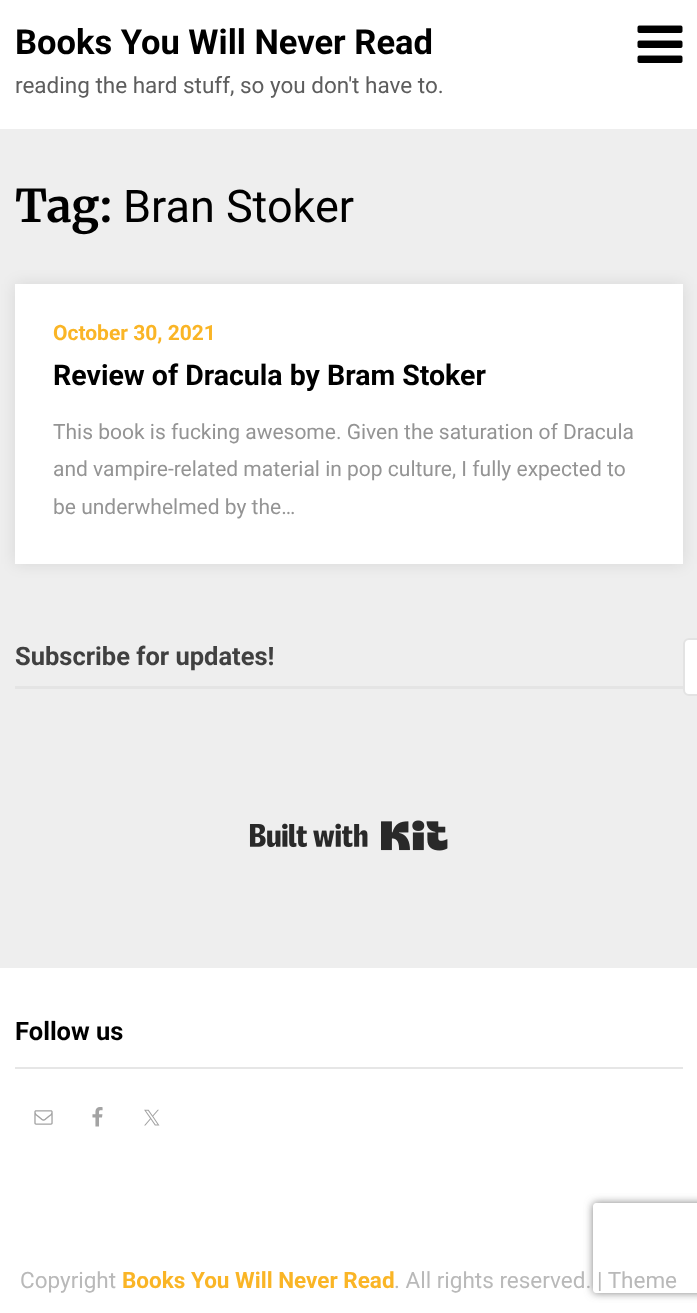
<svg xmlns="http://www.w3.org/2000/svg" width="697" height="1313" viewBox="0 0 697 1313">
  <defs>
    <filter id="blur1" x="-50%" y="-200%" width="200%" height="500%"><feGaussianBlur stdDeviation="7.5"/></filter>
    <clipPath id="clip1"><path d="M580 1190H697V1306H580ZM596 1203H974C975.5 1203 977 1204.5 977 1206V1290C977 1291.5 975.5 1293 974 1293H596C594.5 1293 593 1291.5 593 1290V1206C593 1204.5 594.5 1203 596 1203Z" clip-rule="evenodd"/></clipPath>
    <filter id="blur2" x="-50%" y="-200%" width="200%" height="500%"><feGaussianBlur stdDeviation="4"/></filter>
  </defs>
  <rect width="100%" height="100%" fill="#eeeeee"/>
  <rect x="0" y="0" width="697" height="129" fill="#ffffff"/>
  <text x="15" y="54" font-family="Roboto" font-size="34.5" font-weight="bold" fill="#000000">Books You Will Never Read</text>
  <text x="15" y="93" font-family="Roboto" font-size="22.5" fill="#5d5d5d">reading the hard stuff, so you don't have to.</text>
  <image x="637" y="25" width="46" height="38" href="img1.png"/>
  <text x="15" y="222" font-family="Merriweather" font-size="45" font-weight="bold" fill="#000000">Tag:</text>
  <text x="123" y="222" font-family="Roboto" font-size="45" fill="#000000">Bran Stoker</text>
  <rect x="15" y="284" width="668" height="280" fill="#000000" fill-opacity="0.1" filter="url(#blur1)"/>
  <rect x="15" y="284" width="668" height="280" fill="#ffffff"/>
  <text x="53" y="340" font-family="Roboto" font-size="21" font-weight="bold" fill="#fab526">October 30, 2021</text>
  <text x="53" y="385" font-family="Roboto" font-size="28.5" font-weight="bold" fill="#000000">Review of Dracula by Bram Stoker</text>
  <text x="53" y="439" font-family="Roboto" font-size="21" fill="#949494">This book is fucking awesome. Given the saturation of Dracula</text>
  <text x="53" y="476" font-family="Roboto" font-size="21" fill="#949494">and vampire-related material in pop culture, I fully expected to</text>
  <text x="53" y="514" font-family="Roboto" font-size="21" fill="#949494">be underwhelmed by the…</text>
  <rect x="15" y="686" width="668" height="3" fill="#e4e4e4"/>
  <text x="15" y="665" font-family="Roboto" font-size="25.5" font-weight="bold" fill="#404040">Subscribe for updates!</text>
  <rect x="684" y="639" width="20" height="56" rx="5" fill="#ffffff" stroke="#e3e3e3" stroke-width="2"/>
  <image x="249" y="820" width="199" height="31" href="img2.png"/>
  <rect x="0" y="968" width="697" height="345" fill="#ffffff"/>
  <rect x="15" y="1067" width="668" height="2" fill="#e6e6e6"/>
  <text x="15" y="1040" font-family="Roboto" font-size="25.5" font-weight="bold" fill="#000000">Follow us</text>
  <image x="34" y="1110" width="19" height="15" href="img3.png"/>
  <image x="92" y="1107" width="11" height="20" href="img4.png"/>
  <image x="144" y="1109" width="16" height="17" href="img5.png"/>
  <text x="20" y="1288" font-family="Roboto" font-size="22.5" fill="#b9b9b9">Copyright</text>
  <text x="122" y="1288" font-family="Roboto" font-size="22.5" font-weight="bold" fill="#fab526">Books You Will Never Read</text>
  <text x="394" y="1288" font-family="Roboto" font-size="22.5" fill="#b9b9b9">. All rights reserved. | Theme</text>
  <g clip-path="url(#clip1)">
    <rect x="593" y="1203" width="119" height="90" rx="3" fill="#808080" filter="url(#blur2)"/>
  </g>
</svg>
